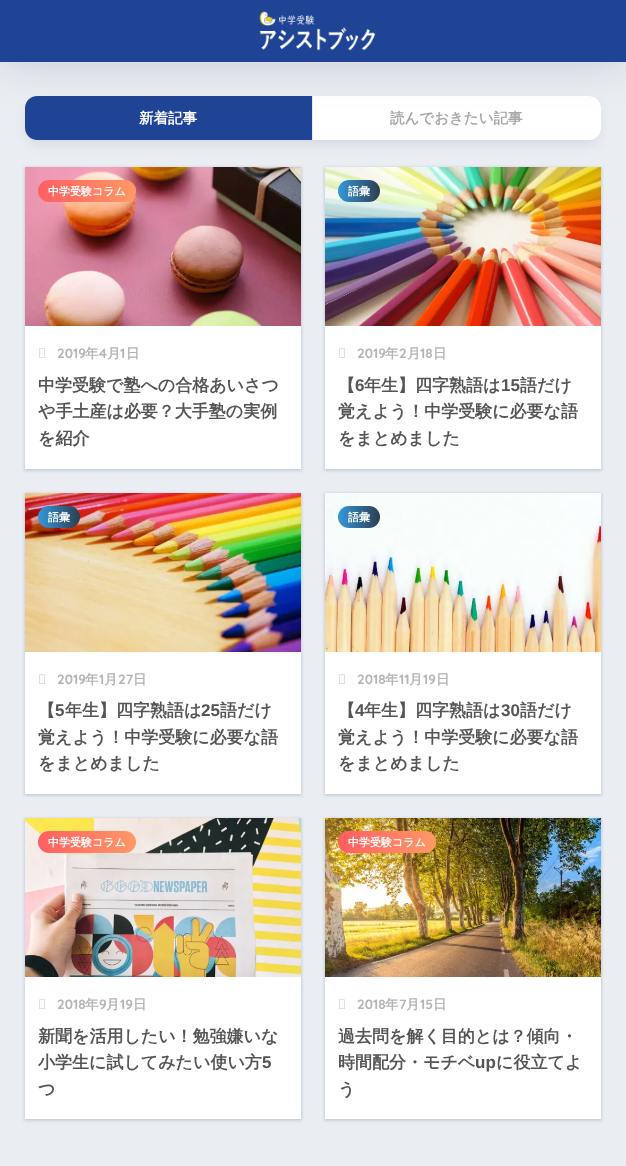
<svg xmlns="http://www.w3.org/2000/svg" width="626" height="1166" viewBox="0 0 626 1166">
  <defs>
    <filter id="blur1" x="-50%" y="-200%" width="200%" height="500%"><feGaussianBlur stdDeviation="0.5"/></filter>
    <filter id="blur2" x="-50%" y="-200%" width="200%" height="500%"><feGaussianBlur stdDeviation="6.5"/></filter>
    <filter id="blur3" x="-50%" y="-200%" width="200%" height="500%"><feGaussianBlur stdDeviation="22.5"/></filter>
    <filter id="blur4" x="-50%" y="-200%" width="200%" height="500%"><feGaussianBlur stdDeviation="1.5"/></filter>
    <filter id="blur5" x="-50%" y="-200%" width="200%" height="500%"><feGaussianBlur stdDeviation="1"/></filter>
    <linearGradient id="g1" gradientUnits="userSpaceOnUse" x1="38" y1="191" x2="136" y2="191"><stop offset="0" stop-color="#ff5e62"/><stop offset="1" stop-color="#ff9966"/></linearGradient>
    <linearGradient id="g2" gradientUnits="userSpaceOnUse" x1="338" y1="191" x2="380" y2="191"><stop offset="0" stop-color="#3498db"/><stop offset="1" stop-color="#2c3e50"/></linearGradient>
    <linearGradient id="g3" gradientUnits="userSpaceOnUse" x1="38" y1="517" x2="80" y2="517"><stop offset="0" stop-color="#3498db"/><stop offset="1" stop-color="#2c3e50"/></linearGradient>
    <linearGradient id="g4" gradientUnits="userSpaceOnUse" x1="338" y1="517" x2="380" y2="517"><stop offset="0" stop-color="#3498db"/><stop offset="1" stop-color="#2c3e50"/></linearGradient>
    <linearGradient id="g5" gradientUnits="userSpaceOnUse" x1="38" y1="842" x2="136" y2="842"><stop offset="0" stop-color="#ff5e62"/><stop offset="1" stop-color="#ff9966"/></linearGradient>
    <linearGradient id="g6" gradientUnits="userSpaceOnUse" x1="338" y1="842" x2="436" y2="842"><stop offset="0" stop-color="#ff5e62"/><stop offset="1" stop-color="#ff9966"/></linearGradient>
  </defs>
  <rect width="100%" height="100%" fill="#eaedf2"/>
  <rect x="25" y="96" width="576" height="44" rx="12" fill="#001e64" fill-opacity="0.1" filter="url(#blur1)"/>
  <rect x="28" y="105" width="570" height="38" rx="9" fill="#000c42" fill-opacity="0.1" filter="url(#blur2)"/>
  <rect x="25" y="96" width="576" height="44" rx="12" fill="#ffffff"/>
  <path d="M37 96H313V140H37C30.5 140 25 134.5 25 128V108C25 101.5 30.5 96 37 96Z" fill="#204495"/>
  <rect x="312" y="96" width="1" height="44" fill="#eaeaea"/>
  <rect x="0" y="0" width="626" height="62" fill="#000c42" fill-opacity="0.16" filter="url(#blur3)"/>
  <rect x="0" y="0" width="626" height="62" fill="#204495"/>
  <image x="259" y="11" width="117" height="40" href="img1.png"/>
  <text x="139" y="123" font-family="WenQuanYi Zen Hei" font-size="14.5" font-weight="bold" fill="#ffffff">新着記事</text>
  <text x="390" y="123" font-family="WenQuanYi Zen Hei" font-size="14.5" font-weight="bold" fill="#a7a7a7">読んでおきたい記事</text>
  <rect x="24" y="167" width="278" height="304" fill="#182c54" fill-opacity="0.1" filter="url(#blur4)"/>
  <rect x="25" y="168" width="276" height="302" fill="#182c54" fill-opacity="0.1" filter="url(#blur5)"/>
  <image x="25" y="167" width="276" height="159" href="img2.png"/>
  <rect x="38" y="180" width="98" height="22" rx="11" fill="url(#g1)"/>
  <text x="48" y="195" font-family="WenQuanYi Zen Hei" font-size="11" font-weight="bold" fill="#ffffff">中学受験コラム</text>
  <rect x="25" y="326" width="276" height="143" fill="#ffffff"/>
  <image x="39" y="348" width="6" height="10" href="img3.png"/>
  <text x="57" y="358" font-family="Quicksand" font-size="13.5" font-weight="bold" fill="#b5b5b5">2019</text>
  <text x="85" y="358" font-family="WenQuanYi Zen Hei" font-size="13.5" font-weight="bold" fill="#b5b5b5">年</text>
  <text x="99" y="358" font-family="Quicksand" font-size="13.5" font-weight="bold" fill="#b5b5b5">4</text>
  <text x="107" y="358" font-family="WenQuanYi Zen Hei" font-size="13.5" font-weight="bold" fill="#b5b5b5">月</text>
  <text x="120" y="358" font-family="Quicksand" font-size="13.5" font-weight="bold" fill="#b5b5b5">1</text>
  <text x="126" y="358" font-family="WenQuanYi Zen Hei" font-size="13.5" font-weight="bold" fill="#b5b5b5">日</text>
  <text x="38" y="391" font-family="WenQuanYi Zen Hei" font-size="17" font-weight="bold" fill="#555555">中学受験で塾への合格あいさつ</text>
  <text x="38" y="417" font-family="WenQuanYi Zen Hei" font-size="17" font-weight="bold" fill="#555555">や手土産は必要？大手塾の実例</text>
  <text x="38" y="444" font-family="WenQuanYi Zen Hei" font-size="17" font-weight="bold" fill="#555555">を紹介</text>
  <rect x="324" y="167" width="278" height="304" fill="#182c54" fill-opacity="0.1" filter="url(#blur4)"/>
  <rect x="325" y="168" width="276" height="302" fill="#182c54" fill-opacity="0.1" filter="url(#blur5)"/>
  <image x="325" y="167" width="276" height="159" href="img4.png"/>
  <rect x="338" y="180" width="42" height="22" rx="11" fill="url(#g2)"/>
  <text x="348" y="195" font-family="WenQuanYi Zen Hei" font-size="11" font-weight="bold" fill="#ffffff">語彙</text>
  <rect x="325" y="326" width="276" height="143" fill="#ffffff"/>
  <image x="339" y="348" width="6" height="10" href="img3.png"/>
  <text x="357" y="358" font-family="Quicksand" font-size="13.5" font-weight="bold" fill="#b5b5b5">2019</text>
  <text x="385" y="358" font-family="WenQuanYi Zen Hei" font-size="13.5" font-weight="bold" fill="#b5b5b5">年</text>
  <text x="399" y="358" font-family="Quicksand" font-size="13.5" font-weight="bold" fill="#b5b5b5">2</text>
  <text x="407" y="358" font-family="WenQuanYi Zen Hei" font-size="13.5" font-weight="bold" fill="#b5b5b5">月</text>
  <text x="420" y="358" font-family="Quicksand" font-size="13.5" font-weight="bold" fill="#b5b5b5">18</text>
  <text x="433" y="358" font-family="WenQuanYi Zen Hei" font-size="13.5" font-weight="bold" fill="#b5b5b5">日</text>
  <text x="338" y="391" font-family="WenQuanYi Zen Hei" font-size="17" font-weight="bold" fill="#555555">【</text>
  <text x="355" y="391" font-family="Liberation Sans" font-size="17" font-weight="bold" fill="#555555">6</text>
  <text x="364" y="391" font-family="WenQuanYi Zen Hei" font-size="17" font-weight="bold" fill="#555555">年生】四字熟語は</text>
  <text x="501" y="391" font-family="Liberation Sans" font-size="17" font-weight="bold" fill="#555555">15</text>
  <text x="520" y="391" font-family="WenQuanYi Zen Hei" font-size="17" font-weight="bold" fill="#555555">語だけ</text>
  <text x="338" y="417" font-family="WenQuanYi Zen Hei" font-size="17" font-weight="bold" fill="#555555">覚えよう！中学受験に必要な語</text>
  <text x="338" y="444" font-family="WenQuanYi Zen Hei" font-size="17" font-weight="bold" fill="#555555">をまとめました</text>
  <rect x="24" y="493" width="278" height="303" fill="#182c54" fill-opacity="0.1" filter="url(#blur4)"/>
  <rect x="25" y="494" width="276" height="301" fill="#182c54" fill-opacity="0.1" filter="url(#blur5)"/>
  <image x="25" y="493" width="276" height="159" href="img5.png"/>
  <rect x="38" y="506" width="42" height="22" rx="11" fill="url(#g3)"/>
  <text x="48" y="521" font-family="WenQuanYi Zen Hei" font-size="11" font-weight="bold" fill="#ffffff">語彙</text>
  <rect x="25" y="652" width="276" height="142" fill="#ffffff"/>
  <image x="39" y="674" width="6" height="10" href="img3.png"/>
  <text x="57" y="684" font-family="Quicksand" font-size="13.5" font-weight="bold" fill="#b5b5b5">2019</text>
  <text x="85" y="684" font-family="WenQuanYi Zen Hei" font-size="13.5" font-weight="bold" fill="#b5b5b5">年</text>
  <text x="99" y="684" font-family="Quicksand" font-size="13.5" font-weight="bold" fill="#b5b5b5">1</text>
  <text x="104" y="684" font-family="WenQuanYi Zen Hei" font-size="13.5" font-weight="bold" fill="#b5b5b5">月</text>
  <text x="118" y="684" font-family="Quicksand" font-size="13.5" font-weight="bold" fill="#b5b5b5">27</text>
  <text x="133" y="684" font-family="WenQuanYi Zen Hei" font-size="13.5" font-weight="bold" fill="#b5b5b5">日</text>
  <text x="38" y="716" font-family="WenQuanYi Zen Hei" font-size="17" font-weight="bold" fill="#555555">【</text>
  <text x="55" y="716" font-family="Liberation Sans" font-size="17" font-weight="bold" fill="#555555">5</text>
  <text x="65" y="716" font-family="WenQuanYi Zen Hei" font-size="17" font-weight="bold" fill="#555555">年生】四字熟語は</text>
  <text x="201" y="716" font-family="Liberation Sans" font-size="17" font-weight="bold" fill="#555555">25</text>
  <text x="220" y="716" font-family="WenQuanYi Zen Hei" font-size="17" font-weight="bold" fill="#555555">語だけ</text>
  <text x="38" y="743" font-family="WenQuanYi Zen Hei" font-size="17" font-weight="bold" fill="#555555">覚えよう！中学受験に必要な語</text>
  <text x="38" y="769" font-family="WenQuanYi Zen Hei" font-size="17" font-weight="bold" fill="#555555">をまとめました</text>
  <rect x="324" y="493" width="278" height="303" fill="#182c54" fill-opacity="0.1" filter="url(#blur4)"/>
  <rect x="325" y="494" width="276" height="301" fill="#182c54" fill-opacity="0.1" filter="url(#blur5)"/>
  <image x="325" y="493" width="276" height="159" href="img6.png"/>
  <rect x="338" y="506" width="42" height="22" rx="11" fill="url(#g4)"/>
  <text x="348" y="521" font-family="WenQuanYi Zen Hei" font-size="11" font-weight="bold" fill="#ffffff">語彙</text>
  <rect x="325" y="652" width="276" height="142" fill="#ffffff"/>
  <image x="339" y="674" width="6" height="10" href="img3.png"/>
  <text x="357" y="684" font-family="Quicksand" font-size="13.5" font-weight="bold" fill="#b5b5b5">2018</text>
  <text x="385" y="684" font-family="WenQuanYi Zen Hei" font-size="13.5" font-weight="bold" fill="#b5b5b5">年</text>
  <text x="399" y="684" font-family="Quicksand" font-size="13.5" font-weight="bold" fill="#b5b5b5">11</text>
  <text x="409" y="684" font-family="WenQuanYi Zen Hei" font-size="13.5" font-weight="bold" fill="#b5b5b5">月</text>
  <text x="423" y="684" font-family="Quicksand" font-size="13.5" font-weight="bold" fill="#b5b5b5">19</text>
  <text x="436" y="684" font-family="WenQuanYi Zen Hei" font-size="13.5" font-weight="bold" fill="#b5b5b5">日</text>
  <text x="338" y="716" font-family="WenQuanYi Zen Hei" font-size="17" font-weight="bold" fill="#555555">【</text>
  <text x="355" y="716" font-family="Liberation Sans" font-size="17" font-weight="bold" fill="#555555">4</text>
  <text x="364" y="716" font-family="WenQuanYi Zen Hei" font-size="17" font-weight="bold" fill="#555555">年生】四字熟語は</text>
  <text x="501" y="716" font-family="Liberation Sans" font-size="17" font-weight="bold" fill="#555555">30</text>
  <text x="520" y="716" font-family="WenQuanYi Zen Hei" font-size="17" font-weight="bold" fill="#555555">語だけ</text>
  <text x="338" y="743" font-family="WenQuanYi Zen Hei" font-size="17" font-weight="bold" fill="#555555">覚えよう！中学受験に必要な語</text>
  <text x="338" y="769" font-family="WenQuanYi Zen Hei" font-size="17" font-weight="bold" fill="#555555">をまとめました</text>
  <rect x="24" y="818" width="278" height="303" fill="#182c54" fill-opacity="0.1" filter="url(#blur4)"/>
  <rect x="25" y="819" width="276" height="301" fill="#182c54" fill-opacity="0.1" filter="url(#blur5)"/>
  <image x="25" y="818" width="276" height="159" href="img7.png"/>
  <rect x="38" y="831" width="98" height="22" rx="11" fill="url(#g5)"/>
  <text x="48" y="846" font-family="WenQuanYi Zen Hei" font-size="11" font-weight="bold" fill="#ffffff">中学受験コラム</text>
  <rect x="25" y="977" width="276" height="142" fill="#ffffff"/>
  <image x="39" y="999" width="6" height="10" href="img3.png"/>
  <text x="57" y="1009" font-family="Quicksand" font-size="13.5" font-weight="bold" fill="#b5b5b5">2018</text>
  <text x="85" y="1009" font-family="WenQuanYi Zen Hei" font-size="13.5" font-weight="bold" fill="#b5b5b5">年</text>
  <text x="99" y="1009" font-family="Quicksand" font-size="13.5" font-weight="bold" fill="#b5b5b5">9</text>
  <text x="106" y="1009" font-family="WenQuanYi Zen Hei" font-size="13.5" font-weight="bold" fill="#b5b5b5">月</text>
  <text x="120" y="1009" font-family="Quicksand" font-size="13.5" font-weight="bold" fill="#b5b5b5">19</text>
  <text x="133" y="1009" font-family="WenQuanYi Zen Hei" font-size="13.5" font-weight="bold" fill="#b5b5b5">日</text>
  <text x="38" y="1042" font-family="WenQuanYi Zen Hei" font-size="17" font-weight="bold" fill="#555555">新聞を活用したい！勉強嫌いな</text>
  <text x="38" y="1068" font-family="WenQuanYi Zen Hei" font-size="17" font-weight="bold" fill="#555555">小学生に試してみたい使い方</text>
  <text x="262" y="1068" font-family="Liberation Sans" font-size="17" font-weight="bold" fill="#555555">5</text>
  <text x="38" y="1095" font-family="WenQuanYi Zen Hei" font-size="17" font-weight="bold" fill="#555555">つ</text>
  <rect x="324" y="818" width="278" height="303" fill="#182c54" fill-opacity="0.1" filter="url(#blur4)"/>
  <rect x="325" y="819" width="276" height="301" fill="#182c54" fill-opacity="0.1" filter="url(#blur5)"/>
  <image x="325" y="818" width="276" height="159" href="img8.png"/>
  <rect x="338" y="831" width="98" height="22" rx="11" fill="url(#g6)"/>
  <text x="348" y="846" font-family="WenQuanYi Zen Hei" font-size="11" font-weight="bold" fill="#ffffff">中学受験コラム</text>
  <rect x="325" y="977" width="276" height="142" fill="#ffffff"/>
  <image x="339" y="999" width="6" height="10" href="img3.png"/>
  <text x="357" y="1009" font-family="Quicksand" font-size="13.5" font-weight="bold" fill="#b5b5b5">2018</text>
  <text x="385" y="1009" font-family="WenQuanYi Zen Hei" font-size="13.5" font-weight="bold" fill="#b5b5b5">年</text>
  <text x="399" y="1009" font-family="Quicksand" font-size="13.5" font-weight="bold" fill="#b5b5b5">7</text>
  <text x="406" y="1009" font-family="WenQuanYi Zen Hei" font-size="13.5" font-weight="bold" fill="#b5b5b5">月</text>
  <text x="420" y="1009" font-family="Quicksand" font-size="13.5" font-weight="bold" fill="#b5b5b5">15</text>
  <text x="433" y="1009" font-family="WenQuanYi Zen Hei" font-size="13.5" font-weight="bold" fill="#b5b5b5">日</text>
  <text x="338" y="1042" font-family="WenQuanYi Zen Hei" font-size="17" font-weight="bold" fill="#555555">過去問を解く目的とは？傾向・</text>
  <text x="338" y="1068" font-family="WenQuanYi Zen Hei" font-size="17" font-weight="bold" fill="#555555">時間配分・モチベ</text>
  <text x="475" y="1068" font-family="Liberation Sans" font-size="17" font-weight="bold" fill="#555555">up</text>
  <text x="496" y="1068" font-family="WenQuanYi Zen Hei" font-size="17" font-weight="bold" fill="#555555">に役立てよ</text>
  <text x="338" y="1095" font-family="WenQuanYi Zen Hei" font-size="17" font-weight="bold" fill="#555555">う</text>
</svg>
